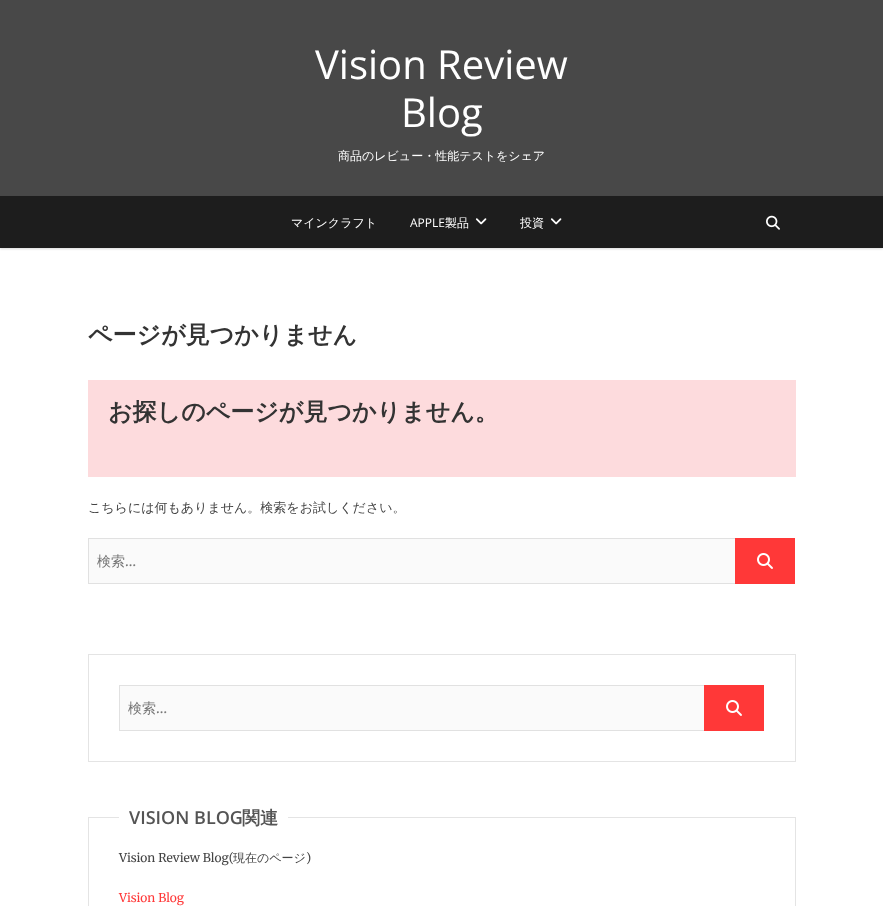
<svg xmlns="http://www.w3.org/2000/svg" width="883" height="906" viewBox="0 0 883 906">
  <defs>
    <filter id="blur1" x="-50%" y="-200%" width="200%" height="500%"><feGaussianBlur stdDeviation="1"/></filter>
  </defs>
  <rect width="100%" height="100%" fill="#ffffff"/>
  <rect x="0" y="0" width="883" height="196" fill="#484848"/>
  <text x="315" y="79" font-family="Open Sans" font-size="40" fill="#ffffff">Vision Review</text>
  <text x="401" y="127" font-family="Open Sans" font-size="40" fill="#ffffff">Blog</text>
  <text x="338" y="160" font-family="WenQuanYi Zen Hei" font-size="12" font-weight="500" fill="#ffffff">商品のレビュー・性能テストをシェア</text>
  <rect x="0" y="197" width="883" height="52" fill="#000000" fill-opacity="0.15" filter="url(#blur1)"/>
  <rect x="0" y="196" width="883" height="52" fill="#1d1d1d"/>
  <text x="291" y="227" font-family="WenQuanYi Zen Hei" font-size="12" font-weight="500" fill="#ffffff">マインクラフト</text>
  <text x="410" y="227" font-family="Open Sans" font-size="12" fill="#ffffff">APPLE</text>
  <text x="445" y="227" font-family="WenQuanYi Zen Hei" font-size="12" font-weight="500" fill="#ffffff">製品</text>
  <image x="475" y="218" width="12" height="7" href="img1.png"/>
  <text x="520" y="227" font-family="WenQuanYi Zen Hei" font-size="12" font-weight="500" fill="#ffffff">投資</text>
  <image x="550" y="218" width="12" height="7" href="img1.png"/>
  <image x="766" y="215" width="14" height="15" href="img2.png"/>
  <text x="88" y="343" font-family="WenQuanYi Zen Hei" font-size="24" font-weight="bold" fill="#333333">ページが見つかりません</text>
  <rect x="88" y="380" width="708" height="97" fill="#fddbdd"/>
  <text x="108" y="420" font-family="WenQuanYi Zen Hei" font-size="24" font-weight="bold" fill="#333333">お探しのページが見つかりません。</text>
  <text x="88" y="512" font-family="WenQuanYi Zen Hei" font-size="13" font-weight="500" fill="#444444">こちらには何もありません。検索をお試しください。</text>
  <rect x="88.5" y="538.5" width="647" height="45" fill="#fafafa" stroke="#e1e1e1"/>
  <text x="97" y="566" font-family="WenQuanYi Zen Hei" font-size="14" font-weight="500" fill="#757575">検索</text>
  <text x="125" y="566" font-family="Merriweather" font-size="14" font-weight="300" fill="#757575">…</text>
  <rect x="735" y="538" width="60" height="46" fill="#ff3838"/>
  <image x="757" y="553" width="16" height="16" href="img3.png"/>
  <rect x="88.5" y="654.5" width="707" height="107" fill="none" stroke="#e4e4e4"/>
  <rect x="119.5" y="685.5" width="585" height="45" fill="#fafafa" stroke="#e1e1e1"/>
  <text x="128" y="713" font-family="WenQuanYi Zen Hei" font-size="14" font-weight="500" fill="#757575">検索</text>
  <text x="156" y="713" font-family="Merriweather" font-size="14" font-weight="300" fill="#757575">…</text>
  <rect x="704" y="685" width="60" height="46" fill="#ff3838"/>
  <image x="726" y="700" width="16" height="16" href="img3.png"/>
  <rect x="88.5" y="817.5" width="707" height="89" fill="none" stroke="#e4e4e4"/>
  <rect x="119" y="817" width="169" height="1" fill="#ffffff"/>
  <text x="129" y="824" font-family="Open Sans" font-size="18" font-weight="600" fill="#545454">VISION BLOG</text>
  <text x="242" y="824" font-family="WenQuanYi Zen Hei" font-size="18" font-weight="bold" fill="#545454">関連</text>
  <text x="119" y="862" font-family="Merriweather" font-size="12" font-weight="300" fill="#444444">Vision Review Blog(</text>
  <text x="233" y="862" font-family="WenQuanYi Zen Hei" font-size="12" font-weight="500" fill="#444444">現在のページ</text>
  <text x="306" y="862" font-family="Merriweather" font-size="12" font-weight="300" fill="#444444">)</text>
  <text x="119" y="902" font-family="Merriweather" font-size="12" font-weight="300" fill="#ff3838">Vision Blog</text>
</svg>
